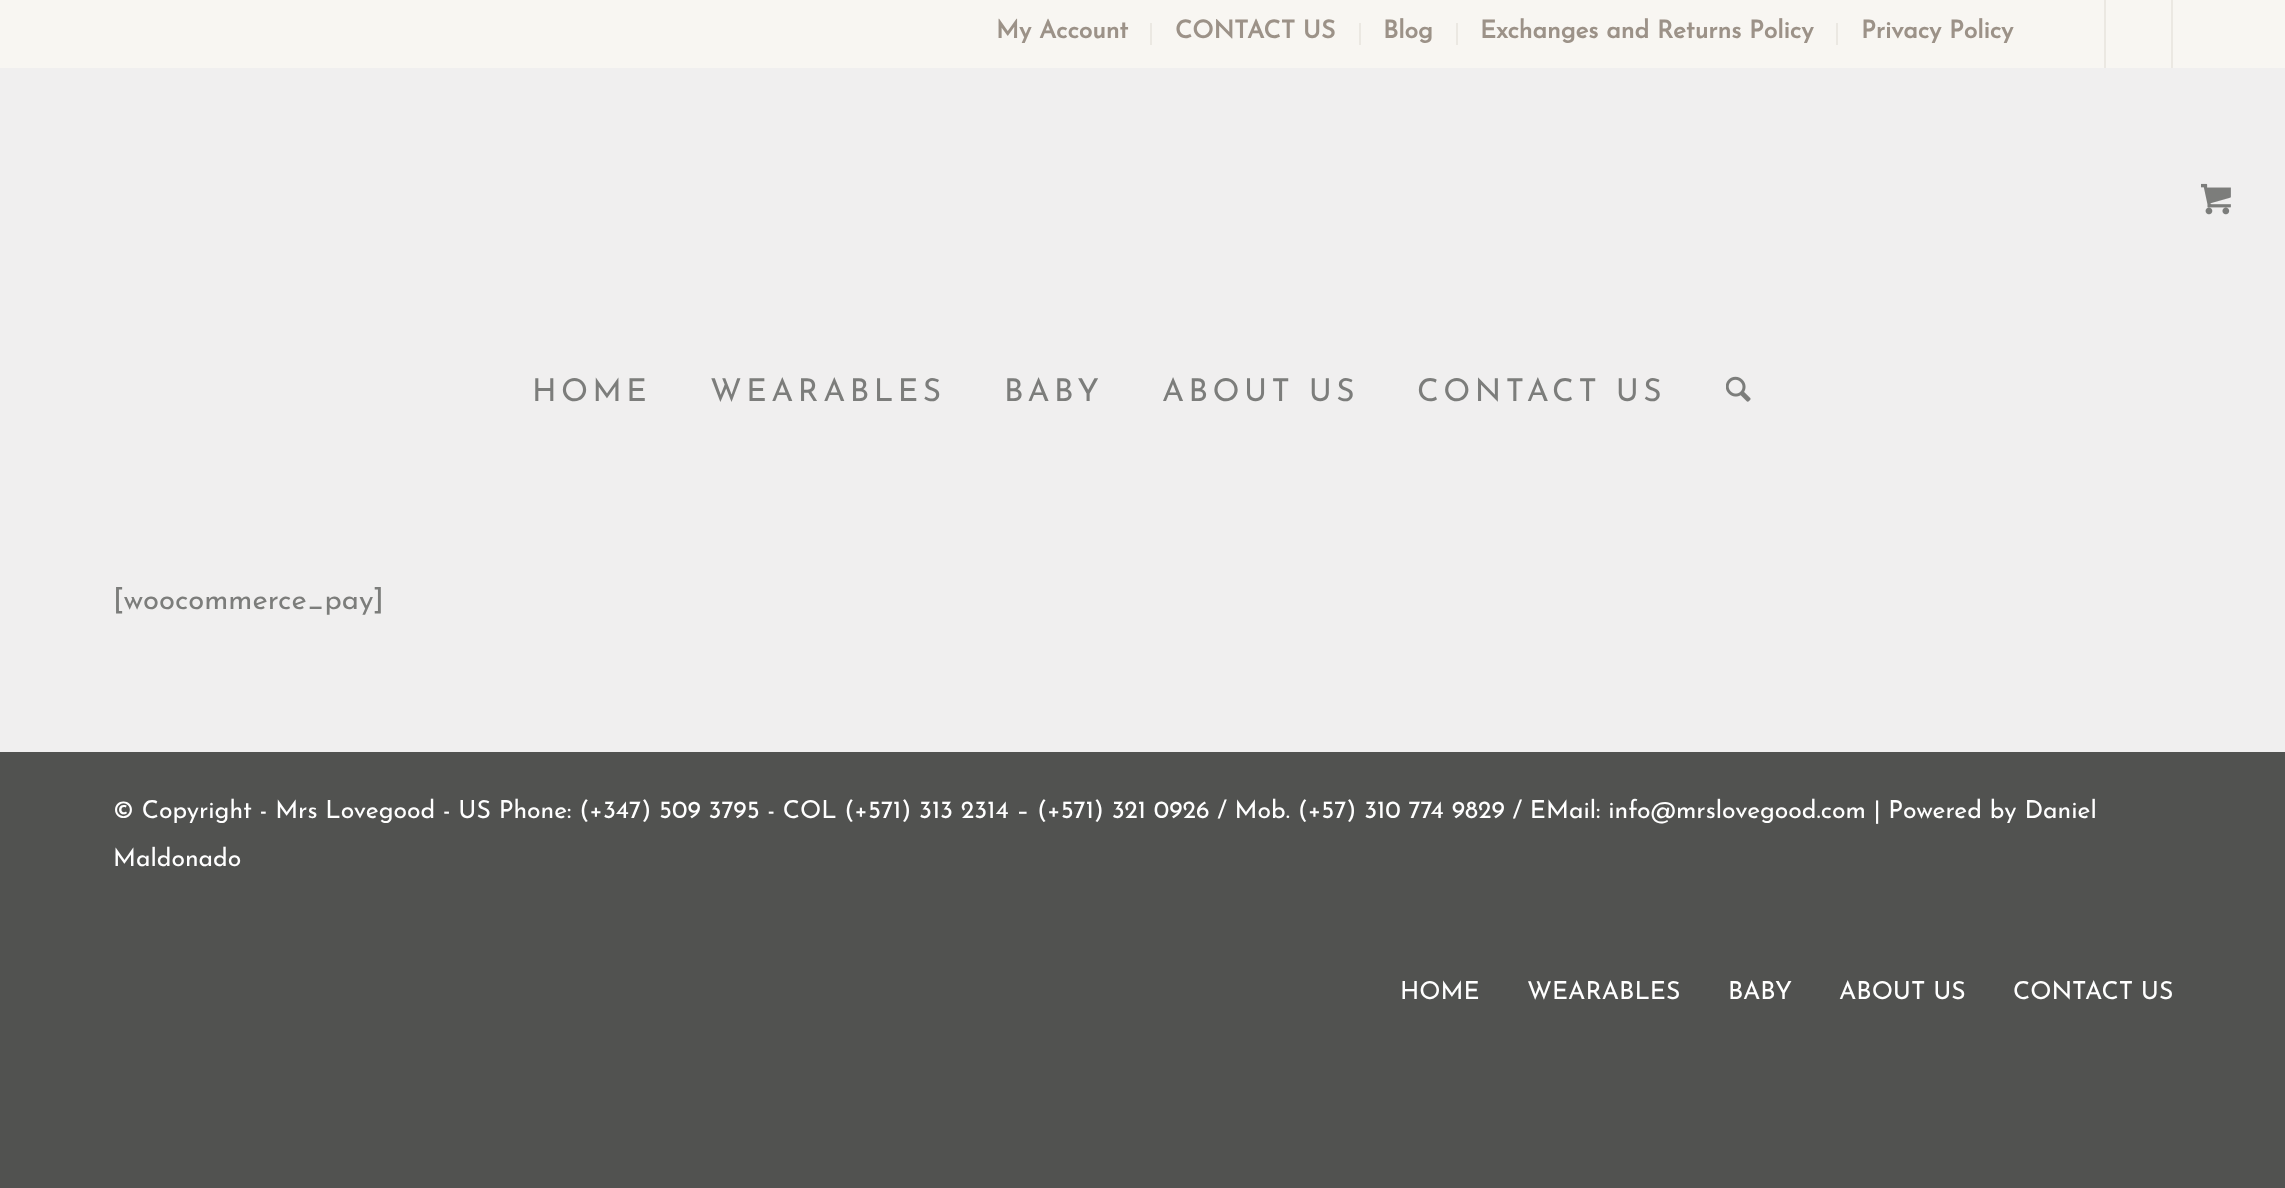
<svg xmlns="http://www.w3.org/2000/svg" width="2285" height="1188" viewBox="0 0 2285 1188">
  <rect width="100%" height="100%" fill="#515250"/>
  <rect x="0" y="68" width="2285" height="684" fill="#f0efef"/>
  <rect x="0" y="0" width="2285" height="68" fill="#f8f6f2"/>
  <rect x="1150" y="23" width="2" height="22" fill="#ebe8e2"/>
  <text x="996" y="38" font-family="Josefin Sans" font-size="24.75" font-weight="bold" fill="#9c9288">My Account</text>
  <rect x="1359" y="23" width="2" height="22" fill="#ebe8e2"/>
  <text x="1175" y="38" font-family="Josefin Sans" font-size="24.75" font-weight="bold" fill="#9c9288">CONTACT US</text>
  <rect x="1456" y="23" width="2" height="22" fill="#ebe8e2"/>
  <text x="1383" y="38" font-family="Josefin Sans" font-size="24.75" font-weight="bold" fill="#9c9288">Blog</text>
  <rect x="1836" y="23" width="2" height="22" fill="#ebe8e2"/>
  <text x="1480" y="38" font-family="Josefin Sans" font-size="24.75" font-weight="bold" fill="#9c9288">Exchanges and Returns Policy</text>
  <text x="1861" y="38" font-family="Josefin Sans" font-size="24.75" font-weight="bold" fill="#9c9288">Privacy Policy</text>
  <rect x="2104" y="0" width="2" height="68" fill="#ebe8e2"/>
  <rect x="2171" y="0" width="2" height="68" fill="#ebe8e2"/>
  <image x="2201" y="183" width="30" height="32" href="img1.png"/>
  <text x="532" y="401" font-family="Josefin Sans" font-size="31.5" font-weight="100" letter-spacing="4.5" fill="#7c7d7b">HOME</text>
  <text x="710" y="401" font-family="Josefin Sans" font-size="31.5" font-weight="100" letter-spacing="4.5" fill="#7c7d7b">WEARABLES</text>
  <text x="1004" y="401" font-family="Josefin Sans" font-size="31.5" font-weight="100" letter-spacing="4.5" fill="#7c7d7b">BABY</text>
  <text x="1162" y="401" font-family="Josefin Sans" font-size="31.5" font-weight="100" letter-spacing="4.5" fill="#7c7d7b">ABOUT US</text>
  <text x="1417" y="401" font-family="Josefin Sans" font-size="31.5" font-weight="100" letter-spacing="4.5" fill="#7c7d7b">CONTACT US</text>
  <image x="1726" y="376" width="25" height="26" href="img2.png"/>
  <text x="113" y="609" font-family="Josefin Sans" font-size="29.25" font-weight="100" fill="#7c7d7b">[woocommerce_pay]</text>
  <text x="113" y="818" font-family="Josefin Sans" font-size="24.75" font-weight="100" fill="#ffffff">© Copyright - Mrs Lovegood - US Phone: (+347) 509 3795 - COL (+571) 313 2314 – (+571) 321 0926 / Mob. (+57) 310 774 9829 / EMail: info@mrslovegood.com | Powered by Daniel</text>
  <text x="113" y="866" font-family="Josefin Sans" font-size="24.75" font-weight="100" fill="#ffffff">Maldonado</text>
  <text x="1400" y="999" font-family="Josefin Sans" font-size="24.75" font-weight="100" fill="#ffffff">HOME</text>
  <text x="1527" y="999" font-family="Josefin Sans" font-size="24.75" font-weight="100" fill="#ffffff">WEARABLES</text>
  <text x="1728" y="999" font-family="Josefin Sans" font-size="24.75" font-weight="100" fill="#ffffff">BABY</text>
  <text x="1839" y="999" font-family="Josefin Sans" font-size="24.75" font-weight="100" fill="#ffffff">ABOUT US</text>
  <text x="2013" y="999" font-family="Josefin Sans" font-size="24.75" font-weight="100" fill="#ffffff">CONTACT US</text>
</svg>
